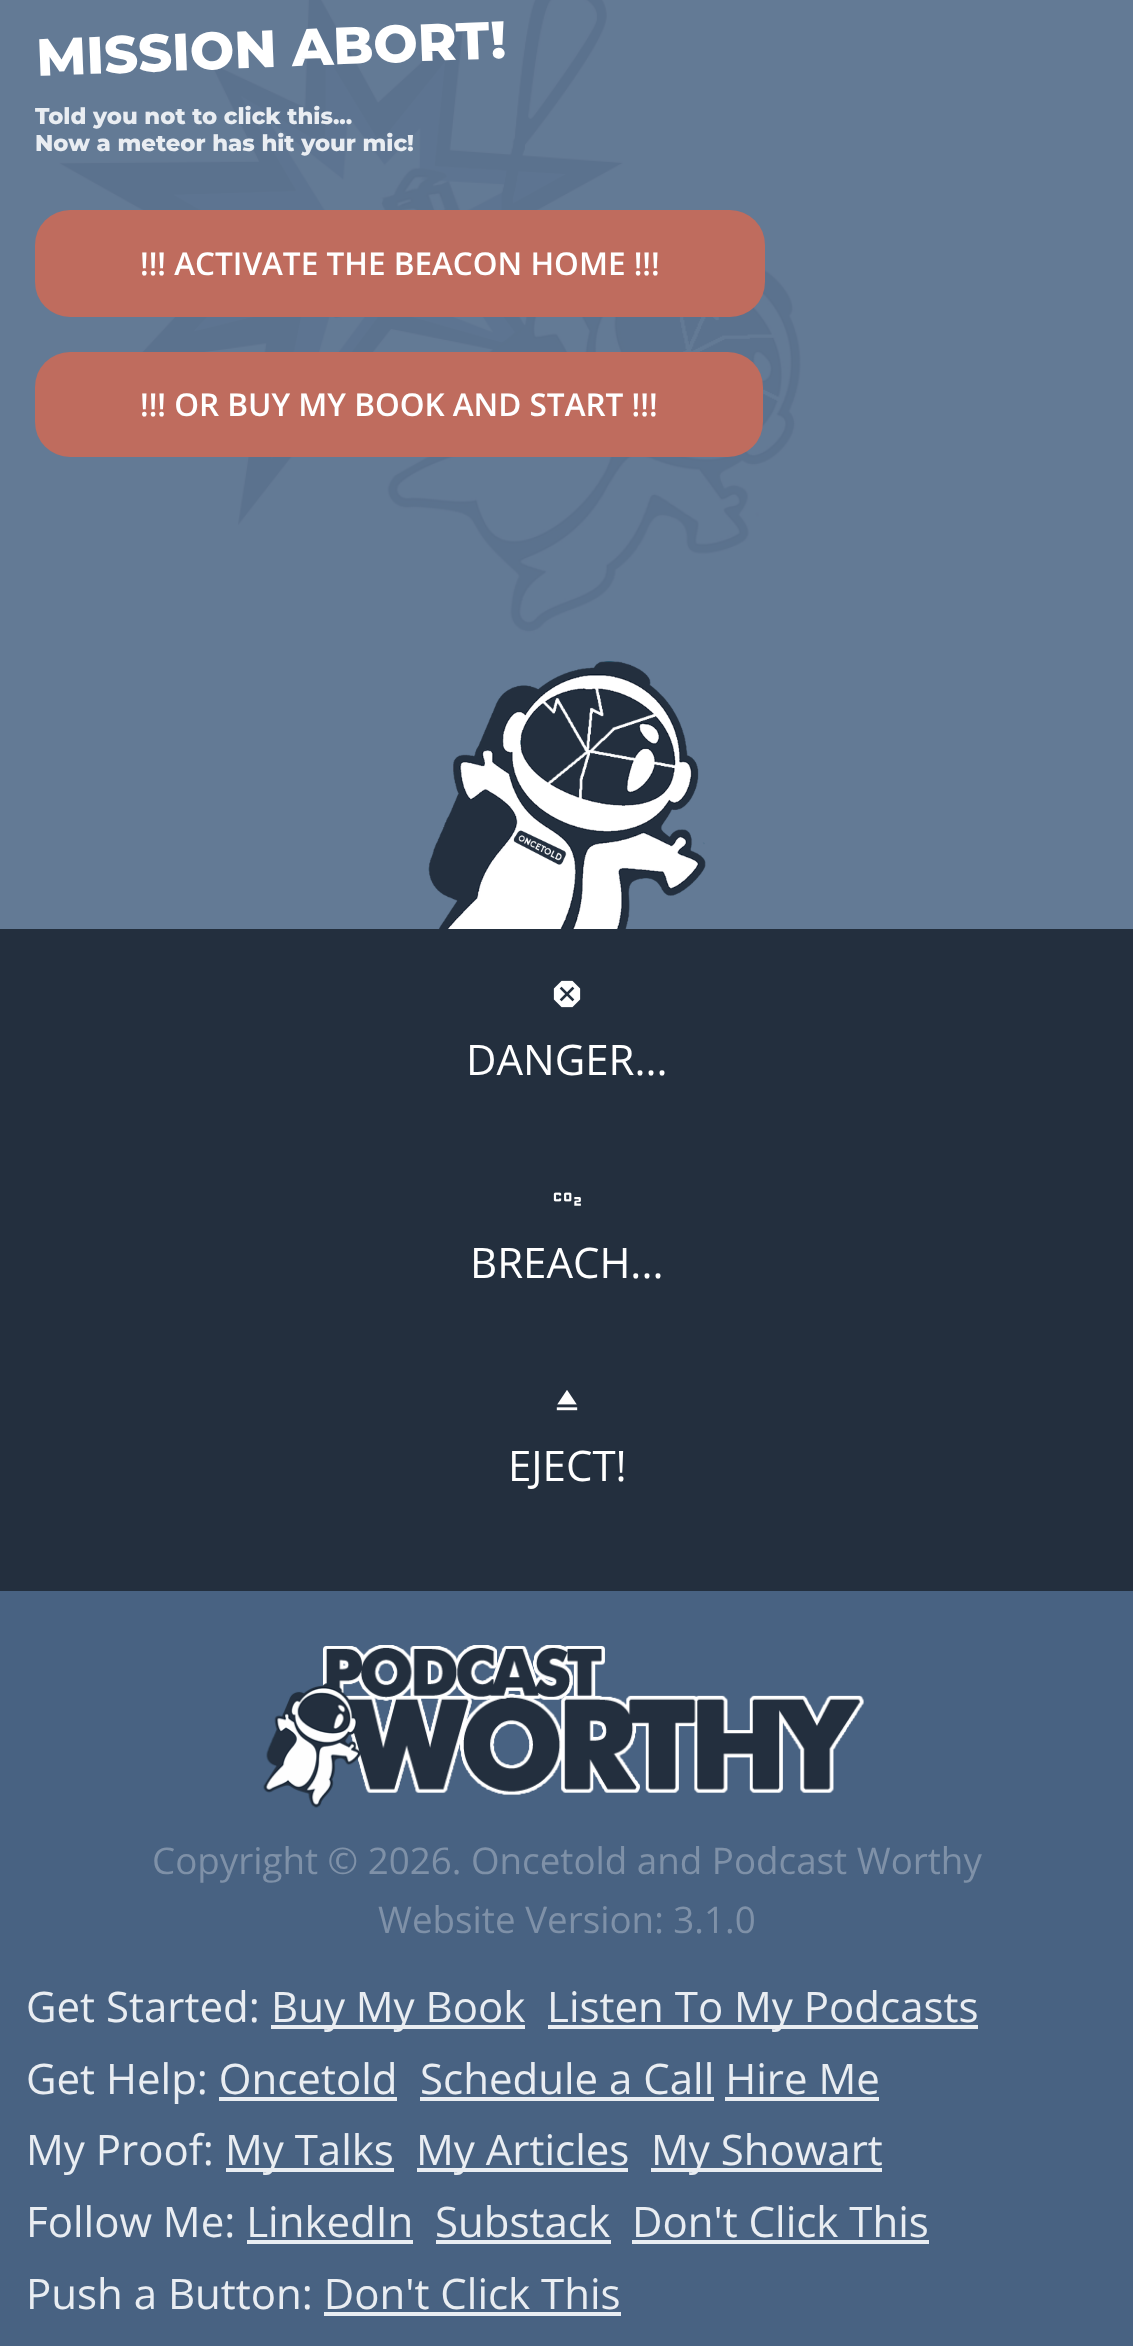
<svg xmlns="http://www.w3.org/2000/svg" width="1133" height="2346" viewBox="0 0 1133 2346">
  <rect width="100%" height="100%" fill="#232f3e"/>
  <image x="0" y="0" width="1133" height="929" href="img1.png"/>
  <text x="37" y="76" transform="rotate(-2.2 37 76)" font-family="Montserrat" font-size="52.5" font-weight="800" fill="#ffffff">MISSION ABORT!</text>
  <text x="35" y="124" font-family="Montserrat" font-size="22.75" font-weight="800" fill="#e9edf2">Told you not to click this...</text>
  <text x="35" y="151" font-family="Montserrat" font-size="22.75" font-weight="800" fill="#e9edf2">Now a meteor has hit your mic!</text>
  <rect x="35" y="210" width="730" height="107" rx="35" fill="#bf6c5e"/>
  <text x="140" y="275" font-family="Open Sans" font-size="31.5" font-weight="600" fill="#ffffff">!!! ACTIVATE THE BEACON HOME !!!</text>
  <rect x="35" y="352" width="728" height="105" rx="35" fill="#bf6c5e"/>
  <text x="140" y="416" font-family="Open Sans" font-size="31.5" font-weight="600" fill="#ffffff">!!! OR BUY MY BOOK AND START !!!</text>
  <image x="428" y="661" width="278" height="268" href="img2.png"/>
  <image x="553" y="980" width="28" height="28" href="img3.png"/>
  <text x="466" y="1075" font-family="Open Sans" font-size="42" fill="#ffffff">DANGER...</text>
  <image x="553" y="1192" width="28" height="14" href="img4.png"/>
  <text x="470" y="1278" font-family="Open Sans" font-size="42" fill="#ffffff">BREACH...</text>
  <image x="556" y="1390" width="22" height="21" href="img5.png"/>
  <text x="508" y="1481" font-family="Open Sans" font-size="42" fill="#ffffff">EJECT!</text>
  <rect x="0" y="1591" width="1133" height="755" fill="#486282"/>
  <image x="263" y="1645" width="601" height="163" href="img6.png"/>
  <text x="152" y="1874" font-family="Open Sans" font-size="36.75" fill="#7f91a8">Copyright © 2026. Oncetold and Podcast Worthy</text>
  <text x="378" y="1933" font-family="Open Sans" font-size="36.75" fill="#7f91a8">Website Version: 3.1.0</text>
  <text x="26" y="2022" font-family="Open Sans" font-size="42" fill="#e9edf2">Get Started:</text>
  <rect x="271" y="2025" width="254" height="4" fill="#e9edf2"/>
  <text x="271" y="2022" font-family="Open Sans" font-size="42" fill="#e9edf2">Buy My Book</text>
  <rect x="548" y="2025" width="430" height="4" fill="#e9edf2"/>
  <text x="547" y="2022" font-family="Open Sans" font-size="42" fill="#e9edf2">Listen To My Podcasts</text>
  <text x="26" y="2094" font-family="Open Sans" font-size="42" fill="#e9edf2">Get Help: Oncetold</text>
  <text x="420" y="2094" font-family="Open Sans" font-size="42" fill="#e9edf2">Schedule a Call Hire Me</text>
  <rect x="420" y="2097" width="294" height="4" fill="#e9edf2"/>
  <rect x="219" y="2097" width="178" height="4" fill="#e9edf2"/>
  <rect x="725" y="2097" width="154" height="4" fill="#e9edf2"/>
  <text x="26" y="2165" font-family="Open Sans" font-size="42" fill="#e9edf2">My Proof:</text>
  <rect x="226" y="2168" width="168" height="4" fill="#e9edf2"/>
  <text x="225" y="2165" font-family="Open Sans" font-size="42" fill="#e9edf2">My Talks</text>
  <rect x="417" y="2168" width="211" height="4" fill="#e9edf2"/>
  <text x="416" y="2165" font-family="Open Sans" font-size="42" fill="#e9edf2">My Articles</text>
  <rect x="651" y="2168" width="231" height="4" fill="#e9edf2"/>
  <text x="651" y="2165" font-family="Open Sans" font-size="42" fill="#e9edf2">My Showart</text>
  <text x="26" y="2237" font-family="Open Sans" font-size="42" fill="#e9edf2">Follow Me: LinkedIn</text>
  <text x="435" y="2237" font-family="Open Sans" font-size="42" fill="#e9edf2">Substack</text>
  <rect x="436" y="2240" width="175" height="4" fill="#e9edf2"/>
  <text x="632" y="2237" font-family="Open Sans" font-size="42" fill="#e9edf2">Don't Click This</text>
  <rect x="632" y="2240" width="297" height="4" fill="#e9edf2"/>
  <rect x="247" y="2240" width="166" height="4" fill="#e9edf2"/>
  <text x="26" y="2309" font-family="Open Sans" font-size="42" fill="#e9edf2">Push a Button: Don't Click This</text>
  <rect x="324" y="2312" width="297" height="4" fill="#e9edf2"/>
</svg>
